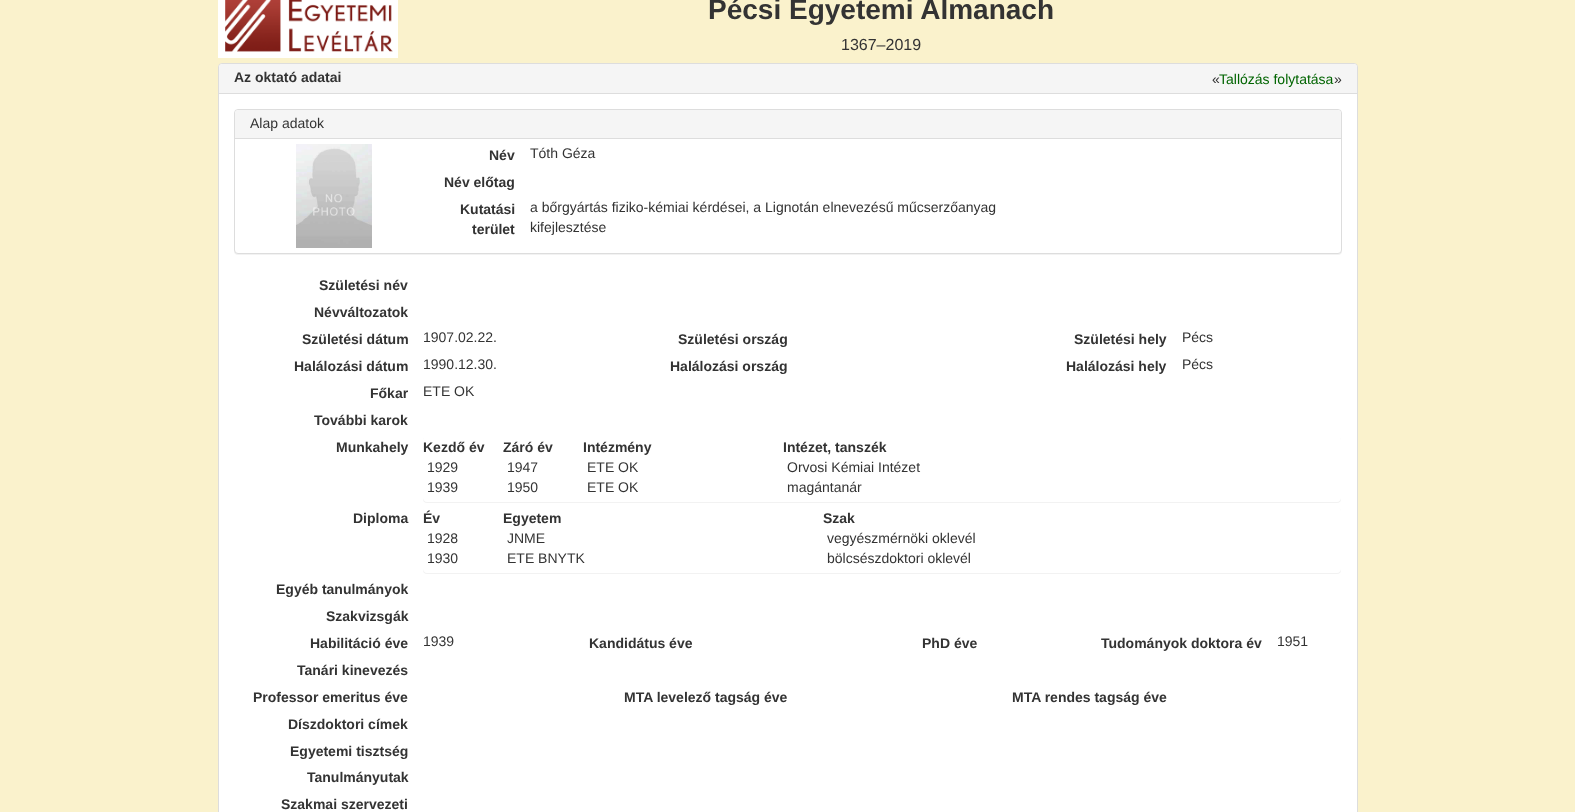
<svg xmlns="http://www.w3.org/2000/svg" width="1575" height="812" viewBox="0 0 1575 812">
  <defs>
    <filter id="blur1" x="-50%" y="-200%" width="200%" height="500%"><feGaussianBlur stdDeviation="0.5"/></filter>
    <clipPath id="clip1"><path d="M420 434H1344V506H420ZM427 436H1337C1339 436 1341 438 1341 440V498C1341 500 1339 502 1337 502H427C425 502 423 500 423 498V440C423 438 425 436 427 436Z" clip-rule="evenodd"/></clipPath>
    <clipPath id="clip2"><path d="M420 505H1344V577H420ZM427 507H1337C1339 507 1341 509 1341 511V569C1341 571 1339 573 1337 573H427C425 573 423 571 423 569V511C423 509 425 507 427 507Z" clip-rule="evenodd"/></clipPath>
  </defs>
  <rect width="100%" height="100%" fill="#faf2cc"/>
  <image x="218" y="0" width="180" height="58" href="img1.png"/>
  <text x="708" y="19" font-family="Liberation Sans" font-size="28" font-weight="bold" fill="#333333">Pécsi Egyetemi Almanach</text>
  <text x="841" y="50" font-family="Liberation Sans" font-size="16" fill="#333333">1367–2019</text>
  <rect x="218.5" y="63.5" width="1139" height="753" rx="3.5" fill="#ffffff" stroke="#dddddd"/>
  <path d="M222 64H1354C1355.5 64 1357 65.5 1357 67V94H219V67C219 65.5 220.5 64 222 64Z" fill="#f5f5f5"/>
  <rect x="219" y="93" width="1138" height="1" fill="#dddddd"/>
  <text x="234" y="82" font-family="Liberation Sans" font-size="14" font-weight="bold" fill="#333333">Az oktató adatai</text>
  <text x="1212" y="84" font-family="Liberation Sans" font-size="14" fill="#333333">«</text>
  <text x="1219" y="84" font-family="Liberation Sans" font-size="14" fill="#006400">Tallózás folytatása</text>
  <text x="1334" y="84" font-family="Liberation Sans" font-size="14" fill="#333333">»</text>
  <rect x="234" y="110" width="1108" height="145" rx="4" fill="#000000" fill-opacity="0.05" filter="url(#blur1)"/>
  <rect x="234.5" y="109.5" width="1107" height="144" rx="3.5" fill="#ffffff" stroke="#dddddd"/>
  <path d="M238 110H1338C1339.5 110 1341 111.5 1341 113V139H235V113C235 111.5 236.5 110 238 110Z" fill="#f5f5f5"/>
  <rect x="235" y="138" width="1106" height="1" fill="#dddddd"/>
  <text x="250" y="128" font-family="Liberation Sans" font-size="14" fill="#333333">Alap adatok</text>
  <image x="296" y="144" width="76" height="104" href="img2.png"/>
  <text x="489" y="160" font-family="Liberation Sans" font-size="14" font-weight="bold" fill="#333333">Név</text>
  <text x="530" y="158" font-family="Liberation Sans" font-size="14" fill="#333333">Tóth Géza</text>
  <text x="444" y="187" font-family="Liberation Sans" font-size="14" font-weight="bold" fill="#333333">Név előtag</text>
  <text x="460" y="214" font-family="Liberation Sans" font-size="14" font-weight="bold" fill="#333333">Kutatási</text>
  <text x="472" y="234" font-family="Liberation Sans" font-size="14" font-weight="bold" fill="#333333">terület</text>
  <text x="530" y="212" font-family="Liberation Sans" font-size="14" fill="#333333">a bőrgyártás fiziko-kémiai kérdései, a Lignotán elnevezésű műcserzőanyag</text>
  <text x="530" y="232" font-family="Liberation Sans" font-size="14" fill="#333333">kifejlesztése</text>
  <text x="319" y="290" font-family="Liberation Sans" font-size="14" font-weight="bold" fill="#333333">Születési név</text>
  <text x="314" y="317" font-family="Liberation Sans" font-size="14" font-weight="bold" fill="#333333">Névváltozatok</text>
  <text x="302" y="344" font-family="Liberation Sans" font-size="14" font-weight="bold" fill="#333333">Születési dátum</text>
  <text x="423" y="342" font-family="Liberation Sans" font-size="14" fill="#333333">1907.02.22.</text>
  <text x="678" y="344" font-family="Liberation Sans" font-size="14" font-weight="bold" fill="#333333">Születési ország</text>
  <text x="1074" y="344" font-family="Liberation Sans" font-size="14" font-weight="bold" fill="#333333">Születési hely</text>
  <text x="1182" y="342" font-family="Liberation Sans" font-size="14" fill="#333333">Pécs</text>
  <text x="294" y="371" font-family="Liberation Sans" font-size="14" font-weight="bold" fill="#333333">Halálozási dátum</text>
  <text x="423" y="369" font-family="Liberation Sans" font-size="14" fill="#333333">1990.12.30.</text>
  <text x="670" y="371" font-family="Liberation Sans" font-size="14" font-weight="bold" fill="#333333">Halálozási ország</text>
  <text x="1066" y="371" font-family="Liberation Sans" font-size="14" font-weight="bold" fill="#333333">Halálozási hely</text>
  <text x="1182" y="369" font-family="Liberation Sans" font-size="14" fill="#333333">Pécs</text>
  <text x="370" y="398" font-family="Liberation Sans" font-size="14" font-weight="bold" fill="#333333">Főkar</text>
  <text x="423" y="396" font-family="Liberation Sans" font-size="14" fill="#333333">ETE OK</text>
  <text x="314" y="425" font-family="Liberation Sans" font-size="14" font-weight="bold" fill="#333333">További karok</text>
  <text x="336" y="452" font-family="Liberation Sans" font-size="14" font-weight="bold" fill="#333333">Munkahely</text>
  <g clip-path="url(#clip1)">
    <rect x="423" y="437" width="918" height="66" rx="4" fill="#000000" fill-opacity="0.05" filter="url(#blur1)"/>
  </g>
  <text x="423" y="452" font-family="Liberation Sans" font-size="14" font-weight="bold" fill="#333333">Kezdő év</text>
  <text x="503" y="452" font-family="Liberation Sans" font-size="14" font-weight="bold" fill="#333333">Záró év</text>
  <text x="583" y="452" font-family="Liberation Sans" font-size="14" font-weight="bold" fill="#333333">Intézmény</text>
  <text x="783" y="452" font-family="Liberation Sans" font-size="14" font-weight="bold" fill="#333333">Intézet, tanszék</text>
  <text x="427" y="472" font-family="Liberation Sans" font-size="14" fill="#333333">1929</text>
  <text x="507" y="472" font-family="Liberation Sans" font-size="14" fill="#333333">1947</text>
  <text x="587" y="472" font-family="Liberation Sans" font-size="14" fill="#333333">ETE OK</text>
  <text x="787" y="472" font-family="Liberation Sans" font-size="14" fill="#333333">Orvosi Kémiai Intézet</text>
  <text x="427" y="492" font-family="Liberation Sans" font-size="14" fill="#333333">1939</text>
  <text x="507" y="492" font-family="Liberation Sans" font-size="14" fill="#333333">1950</text>
  <text x="587" y="492" font-family="Liberation Sans" font-size="14" fill="#333333">ETE OK</text>
  <text x="787" y="492" font-family="Liberation Sans" font-size="14" fill="#333333">magántanár</text>
  <text x="353" y="523" font-family="Liberation Sans" font-size="14" font-weight="bold" fill="#333333">Diploma</text>
  <g clip-path="url(#clip2)">
    <rect x="423" y="508" width="918" height="66" rx="4" fill="#000000" fill-opacity="0.05" filter="url(#blur1)"/>
  </g>
  <text x="423" y="523" font-family="Liberation Sans" font-size="14" font-weight="bold" fill="#333333">Év</text>
  <text x="503" y="523" font-family="Liberation Sans" font-size="14" font-weight="bold" fill="#333333">Egyetem</text>
  <text x="823" y="523" font-family="Liberation Sans" font-size="14" font-weight="bold" fill="#333333">Szak</text>
  <text x="427" y="543" font-family="Liberation Sans" font-size="14" fill="#333333">1928</text>
  <text x="507" y="543" font-family="Liberation Sans" font-size="14" fill="#333333">JNME</text>
  <text x="827" y="543" font-family="Liberation Sans" font-size="14" fill="#333333">vegyészmérnöki oklevél</text>
  <text x="427" y="563" font-family="Liberation Sans" font-size="14" fill="#333333">1930</text>
  <text x="507" y="563" font-family="Liberation Sans" font-size="14" fill="#333333">ETE BNYTK</text>
  <text x="827" y="563" font-family="Liberation Sans" font-size="14" fill="#333333">bölcsészdoktori oklevél</text>
  <text x="276" y="594" font-family="Liberation Sans" font-size="14" font-weight="bold" fill="#333333">Egyéb tanulmányok</text>
  <text x="326" y="621" font-family="Liberation Sans" font-size="14" font-weight="bold" fill="#333333">Szakvizsgák</text>
  <text x="310" y="648" font-family="Liberation Sans" font-size="14" font-weight="bold" fill="#333333">Habilitáció éve</text>
  <text x="423" y="646" font-family="Liberation Sans" font-size="14" fill="#333333">1939</text>
  <text x="589" y="648" font-family="Liberation Sans" font-size="14" font-weight="bold" fill="#333333">Kandidátus éve</text>
  <text x="922" y="648" font-family="Liberation Sans" font-size="14" font-weight="bold" fill="#333333">PhD éve</text>
  <text x="1101" y="648" font-family="Liberation Sans" font-size="14" font-weight="bold" fill="#333333">Tudományok doktora év</text>
  <text x="1277" y="646" font-family="Liberation Sans" font-size="14" fill="#333333">1951</text>
  <text x="297" y="675" font-family="Liberation Sans" font-size="14" font-weight="bold" fill="#333333">Tanári kinevezés</text>
  <text x="253" y="702" font-family="Liberation Sans" font-size="14" font-weight="bold" fill="#333333">Professor emeritus éve</text>
  <text x="624" y="702" font-family="Liberation Sans" font-size="14" font-weight="bold" fill="#333333">MTA levelező tagság éve</text>
  <text x="1012" y="702" font-family="Liberation Sans" font-size="14" font-weight="bold" fill="#333333">MTA rendes tagság éve</text>
  <text x="288" y="729" font-family="Liberation Sans" font-size="14" font-weight="bold" fill="#333333">Díszdoktori címek</text>
  <text x="290" y="756" font-family="Liberation Sans" font-size="14" font-weight="bold" fill="#333333">Egyetemi tisztség</text>
  <text x="307" y="782" font-family="Liberation Sans" font-size="14" font-weight="bold" fill="#333333">Tanulmányutak</text>
  <text x="281" y="809" font-family="Liberation Sans" font-size="14" font-weight="bold" fill="#333333">Szakmai szervezeti</text>
</svg>
